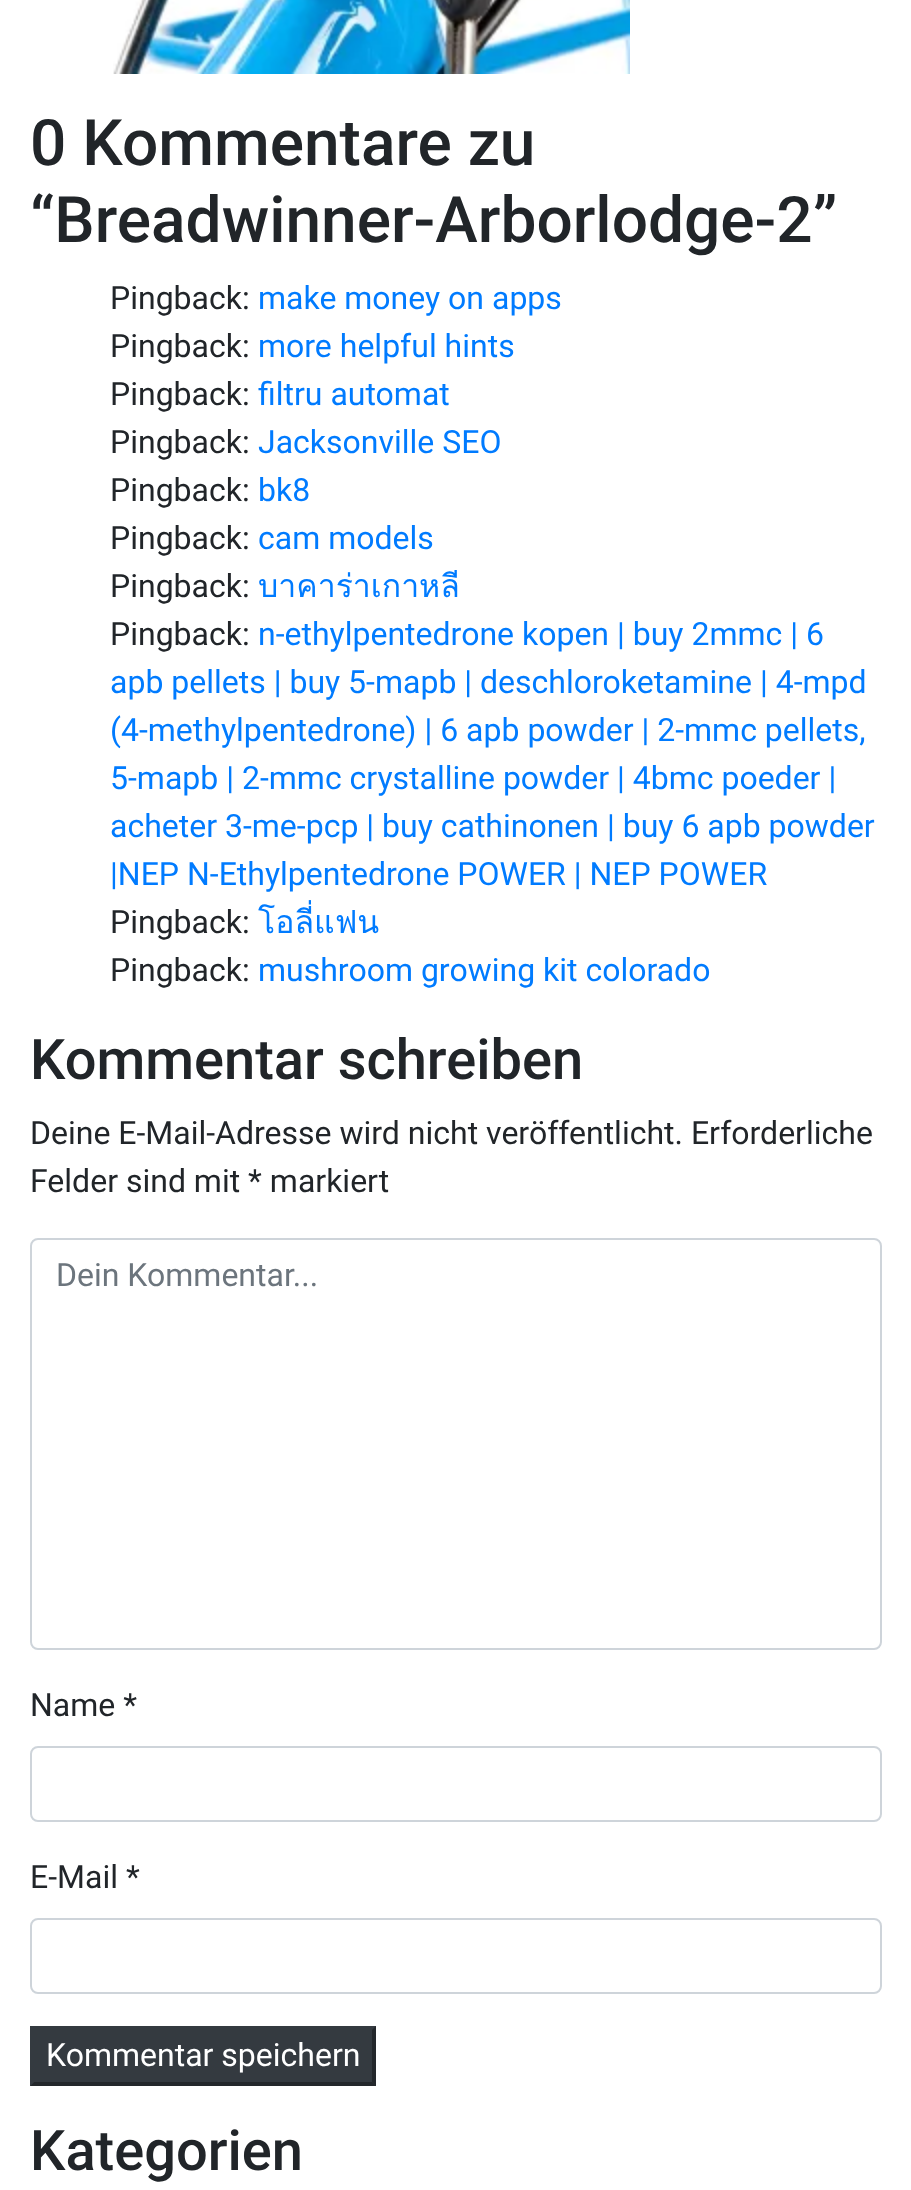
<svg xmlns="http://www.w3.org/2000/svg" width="911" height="2190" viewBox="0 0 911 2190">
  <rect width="100%" height="100%" fill="#ffffff"/>
  <image x="113" y="0" width="517" height="74" href="img1.png"/>
  <text x="30" y="165" font-family="Roboto" font-size="64" font-weight="500" fill="#212529">0 Kommentare zu</text>
  <text x="30" y="242" font-family="Roboto" font-size="64" font-weight="500" fill="#212529">“Breadwinner-Arborlodge-2”</text>
  <text x="110" y="309" font-family="Roboto" font-size="32" fill="#212529">Pingback:</text>
  <text x="258" y="309" font-family="Roboto" font-size="32" fill="#007bff">make money on apps</text>
  <text x="110" y="357" font-family="Roboto" font-size="32" fill="#212529">Pingback:</text>
  <text x="258" y="357" font-family="Roboto" font-size="32" fill="#007bff">more helpful hints</text>
  <text x="110" y="405" font-family="Roboto" font-size="32" fill="#212529">Pingback:</text>
  <text x="258" y="405" font-family="Roboto" font-size="32" fill="#007bff">filtru automat</text>
  <text x="110" y="453" font-family="Roboto" font-size="32" fill="#212529">Pingback:</text>
  <text x="258" y="453" font-family="Roboto" font-size="32" fill="#007bff">Jacksonville SEO</text>
  <text x="110" y="501" font-family="Roboto" font-size="32" fill="#212529">Pingback:</text>
  <text x="258" y="501" font-family="Roboto" font-size="32" fill="#007bff">bk8</text>
  <text x="110" y="549" font-family="Roboto" font-size="32" fill="#212529">Pingback:</text>
  <text x="258" y="549" font-family="Roboto" font-size="32" fill="#007bff">cam models</text>
  <text x="110" y="597" font-family="Roboto" font-size="32" fill="#212529">Pingback:</text>
  <text x="258" y="597" font-family="Loma" font-size="32" fill="#007bff">บาคาร่าเกาหลี</text>
  <text x="110" y="645" font-family="Roboto" font-size="32" fill="#212529">Pingback:</text>
  <text x="258" y="645" font-family="Roboto" font-size="32" fill="#007bff">n-ethylpentedrone kopen | buy 2mmc | 6</text>
  <text x="110" y="693" font-family="Roboto" font-size="32" fill="#007bff">apb pellets | buy 5-mapb | deschloroketamine | 4-mpd</text>
  <text x="110" y="741" font-family="Roboto" font-size="32" fill="#007bff">(4-methylpentedrone) | 6 apb powder | 2-mmc pellets,</text>
  <text x="110" y="789" font-family="Roboto" font-size="32" fill="#007bff">5-mapb | 2-mmc crystalline powder | 4bmc poeder |</text>
  <text x="110" y="837" font-family="Roboto" font-size="32" fill="#007bff">acheter 3-me-pcp | buy cathinonen | buy 6 apb powder</text>
  <text x="110" y="885" font-family="Roboto" font-size="32" fill="#007bff">|NEP N-Ethylpentedrone POWER | NEP POWER</text>
  <text x="110" y="933" font-family="Roboto" font-size="32" fill="#212529">Pingback:</text>
  <text x="258" y="933" font-family="Loma" font-size="32" fill="#007bff">โอลี่แฟน</text>
  <text x="110" y="981" font-family="Roboto" font-size="32" fill="#212529">Pingback:</text>
  <text x="258" y="981" font-family="Roboto" font-size="32" fill="#007bff">mushroom growing kit colorado</text>
  <text x="30" y="1079" font-family="Roboto" font-size="56" font-weight="500" fill="#212529">Kommentar schreiben</text>
  <text x="30" y="1144" font-family="Roboto" font-size="32" fill="#212529">Deine E-Mail-Adresse wird nicht veröffentlicht. Erforderliche</text>
  <text x="30" y="1192" font-family="Roboto" font-size="32" fill="#212529">Felder sind mit * markiert</text>
  <rect x="31" y="1239" width="850" height="410" rx="7" fill="none" stroke="#ced4da" stroke-width="2"/>
  <text x="56" y="1286" font-family="Roboto" font-size="32" fill="#6c757d">Dein Kommentar...</text>
  <text x="30" y="1716" font-family="Roboto" font-size="32" fill="#212529">Name *</text>
  <rect x="31" y="1747" width="850" height="74" rx="7" fill="none" stroke="#ced4da" stroke-width="2"/>
  <text x="30" y="1888" font-family="Roboto" font-size="32" fill="#212529">E-Mail *</text>
  <rect x="31" y="1919" width="850" height="74" rx="7" fill="none" stroke="#ced4da" stroke-width="2"/>
  <rect x="30" y="2026" width="346" height="60" fill="#343a40"/>
  <path d="M376 2026V2086L372 2082V2030Z" fill="#23272b"/>
  <path d="M376 2086H30L34 2082H372Z" fill="#23272b"/>
  <path d="M30 2086V2026L34 2030V2082Z" fill="#343a40"/>
  <text x="46" y="2066" font-family="Roboto" font-size="32" fill="#ffffff">Kommentar speichern</text>
  <text x="30" y="2170" font-family="Roboto" font-size="56" font-weight="500" fill="#212529">Kategorien</text>
</svg>
